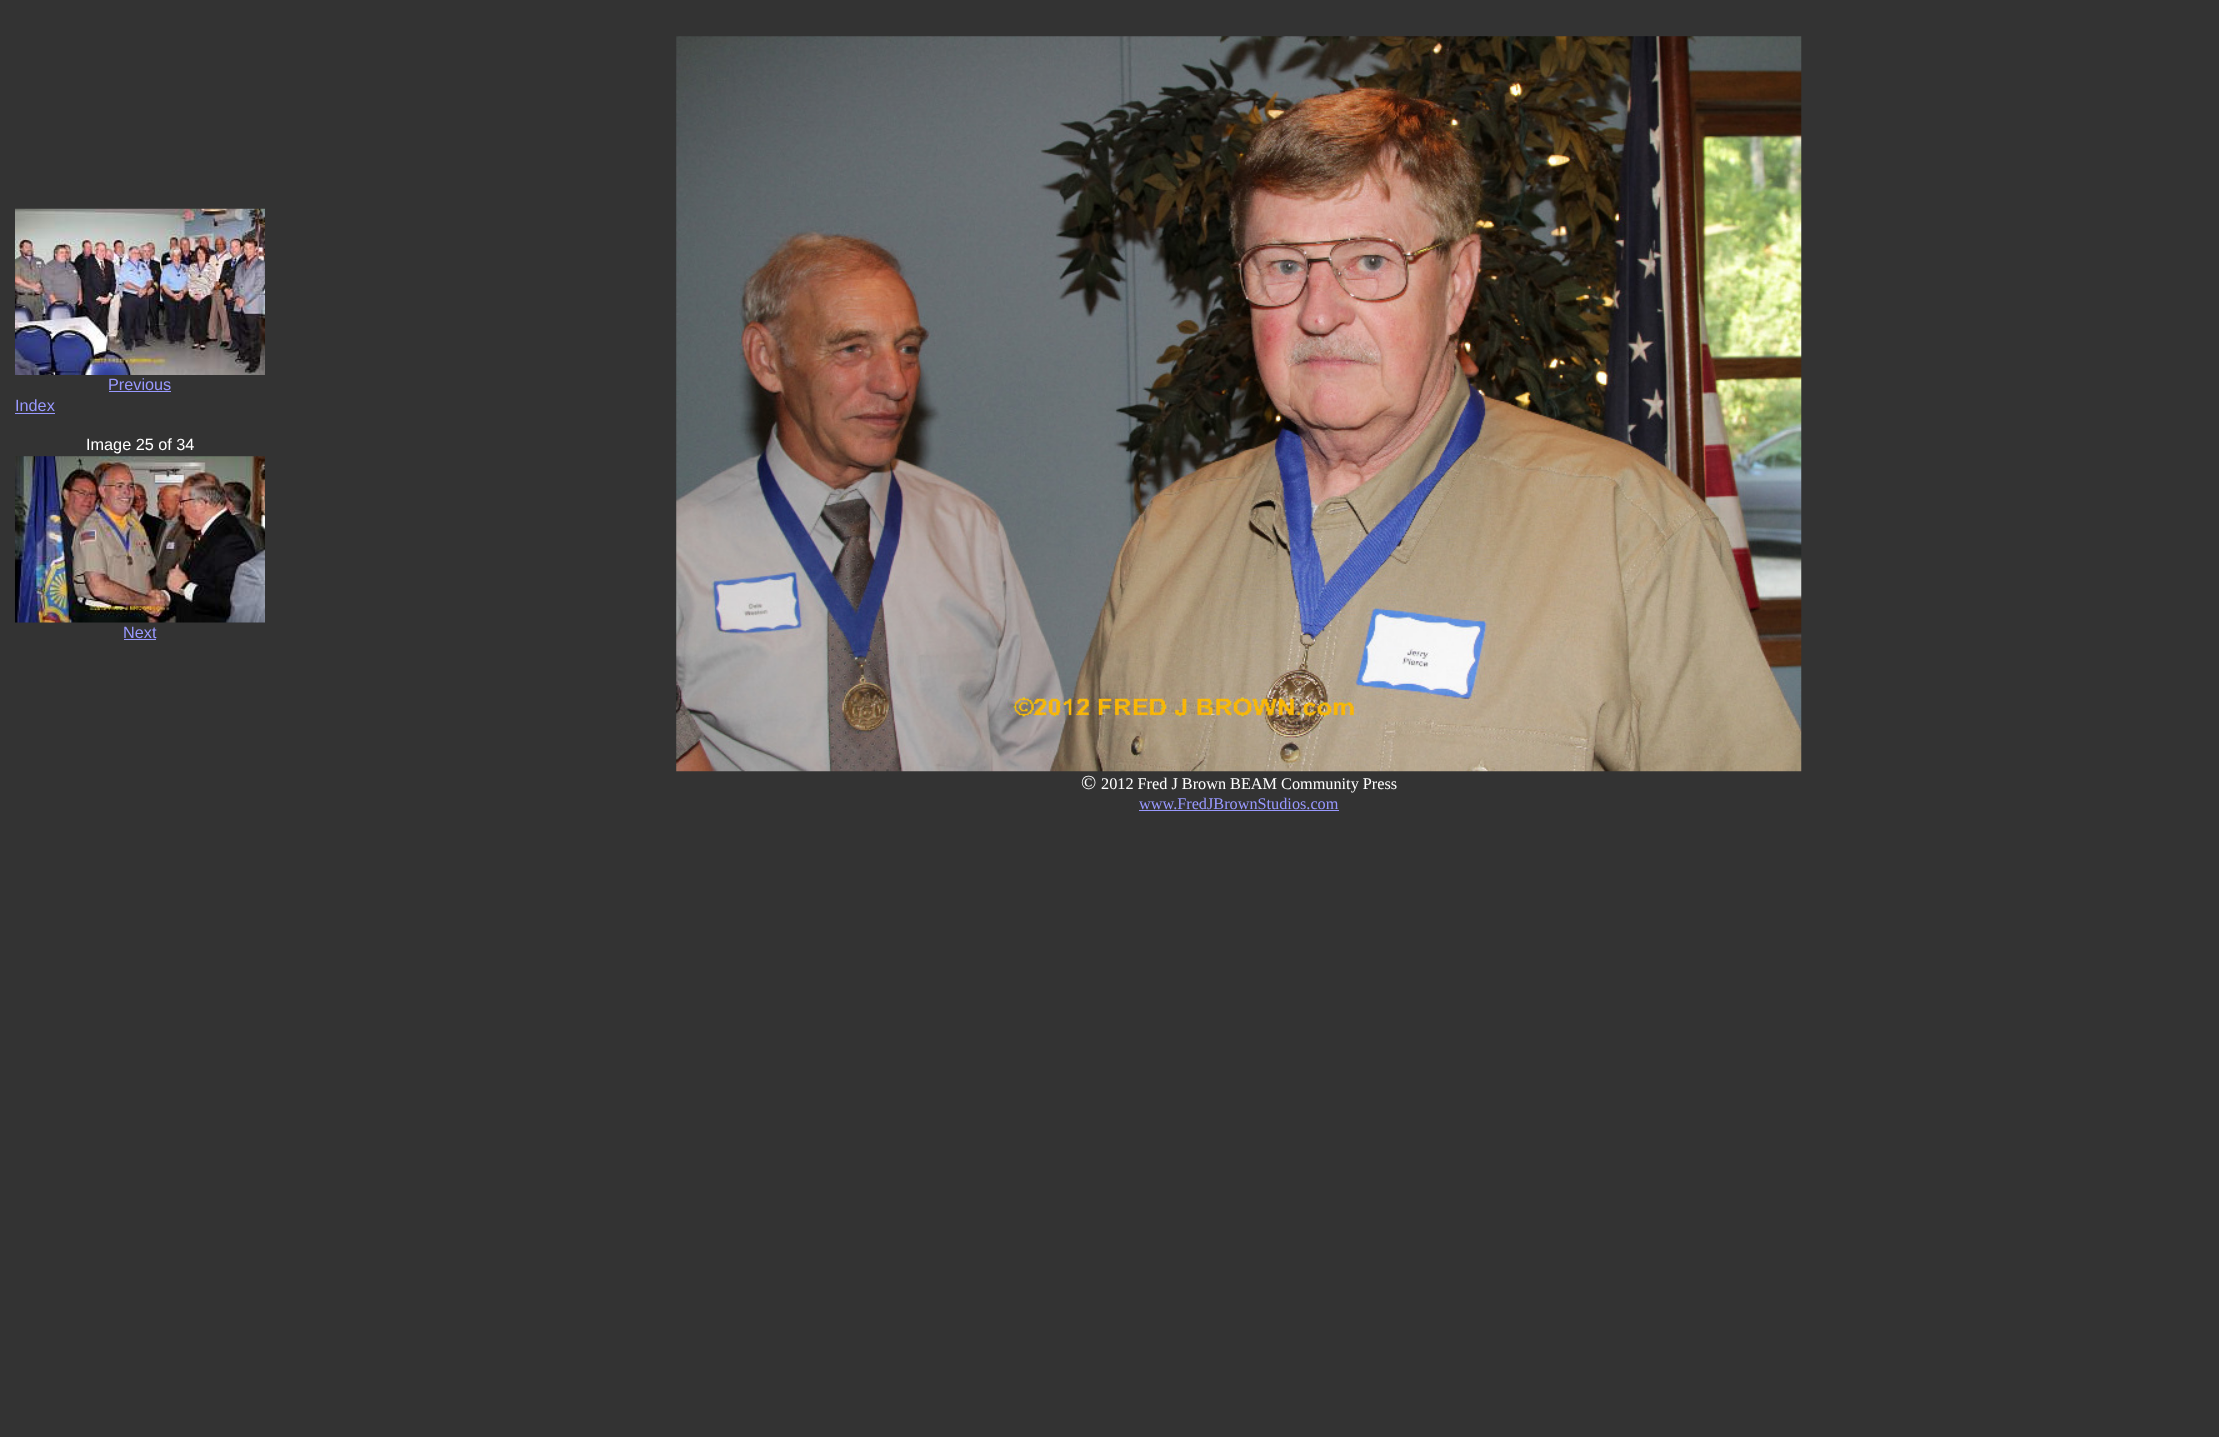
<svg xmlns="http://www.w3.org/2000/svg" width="2219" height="1437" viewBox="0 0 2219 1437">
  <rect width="100%" height="100%" fill="#333333"/>
  <image x="15" y="208" width="250" height="167" href="img1.png"/>
  <text x="108" y="390" font-family="Liberation Sans" font-size="16.25" fill="#9999ff">Previous</text>
  <rect x="109" y="391" width="62" height="1" fill="#9999ff"/>
  <text x="15" y="411" font-family="Liberation Sans" font-size="16.25" fill="#9999ff">Index</text>
  <rect x="15" y="413" width="40" height="1" fill="#9999ff"/>
  <text x="86" y="450" font-family="Liberation Sans" font-size="16.25" fill="#ffffff">Image 25 of 34</text>
  <image x="15" y="456" width="250" height="167" href="img2.png"/>
  <text x="123" y="638" font-family="Liberation Sans" font-size="16.25" fill="#9999ff">Next</text>
  <rect x="124" y="639" width="32" height="1" fill="#9999ff"/>
  <image x="676" y="36" width="1126" height="736" href="img3.png"/>
  <text x="1081" y="789" font-family="Liberation Serif" font-size="20" fill="#ffffff">©</text>
  <text x="1101" y="789" font-family="Liberation Serif" font-size="16.25" fill="#ffffff">2012 Fred J Brown BEAM Community Press</text>
  <text x="1139" y="809" font-family="Liberation Serif" font-size="16.25" fill="#9999ff">www.FredJBrownStudios.com</text>
  <rect x="1139" y="810" width="200" height="1" fill="#9999ff"/>
</svg>
